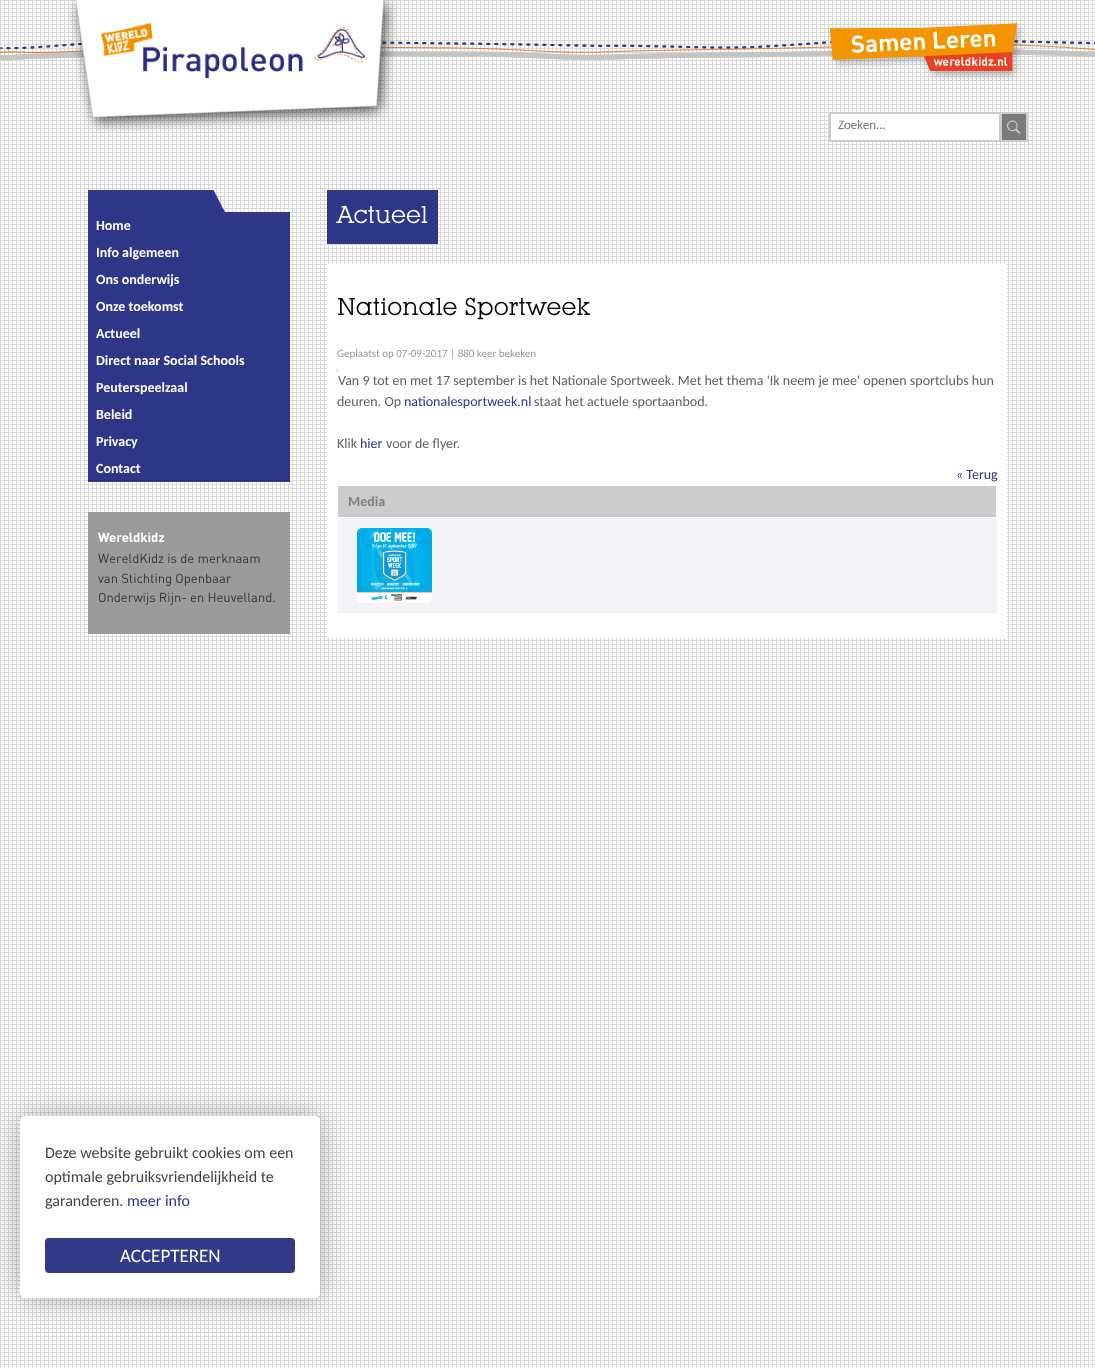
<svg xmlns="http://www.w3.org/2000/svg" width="1095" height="1368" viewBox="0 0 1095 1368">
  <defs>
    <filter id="blur1" x="-50%" y="-200%" width="200%" height="500%"><feGaussianBlur stdDeviation="15"/></filter>
  </defs>
  <rect width="100%" height="100%" fill="#ffffff"/>
  <image x="0" y="0" width="1095" height="1368" href="img1.png"/>
  <image x="0" y="40" width="1095" height="21" href="img2.png"/>
  <image x="68" y="0" width="330" height="133" href="img3.png"/>
  <image x="101" y="23" width="264" height="55" href="img4.png"/>
  <image x="828" y="22" width="197" height="59" href="img5.png"/>
  <rect x="1001" y="113" width="26" height="28" fill="#7a7a7a" stroke="#cccccc" stroke-width="2"/>
  <rect x="830" y="113" width="170" height="28" fill="#ffffff" stroke="#cccccc" stroke-width="2"/>
  <text x="838" y="129" font-family="Carlito" font-size="13" fill="#757575">Zoeken...</text>
  <image x="1007" y="120" width="14" height="14" href="img6.png"/>
  <image x="88" y="190" width="138" height="22" href="img7.png"/>
  <rect x="88" y="212" width="202" height="270" fill="#2e3687"/>
  <text x="96" y="230" font-family="Carlito" font-size="14" font-weight="bold" fill="#ffffff">Home</text>
  <text x="96" y="257" font-family="Carlito" font-size="14" font-weight="bold" fill="#ffffff">Info algemeen</text>
  <text x="96" y="284" font-family="Carlito" font-size="14" font-weight="bold" fill="#ffffff">Ons onderwijs</text>
  <text x="96" y="311" font-family="Carlito" font-size="14" font-weight="bold" fill="#ffffff">Onze toekomst</text>
  <text x="96" y="338" font-family="Carlito" font-size="14" font-weight="bold" fill="#ffffff">Actueel</text>
  <text x="96" y="365" font-family="Carlito" font-size="14" font-weight="bold" fill="#ffffff">Direct naar Social Schools</text>
  <text x="96" y="392" font-family="Carlito" font-size="14" font-weight="bold" fill="#ffffff">Peuterspeelzaal</text>
  <text x="96" y="419" font-family="Carlito" font-size="14" font-weight="bold" fill="#ffffff">Beleid</text>
  <text x="96" y="446" font-family="Carlito" font-size="14" font-weight="bold" fill="#ffffff">Privacy</text>
  <text x="96" y="473" font-family="Carlito" font-size="14" font-weight="bold" fill="#ffffff">Contact</text>
  <rect x="88" y="512" width="202" height="122" fill="#9b9b9b"/>
  <text x="98" y="542" font-family="DIN" font-size="13" font-weight="bold" fill="#ffffff">Wereldkidz</text>
  <text x="98" y="563" font-family="DIN" font-size="13" fill="#333333">WereldKidz is de merknaam</text>
  <text x="98" y="583" font-family="DIN" font-size="13" fill="#333333">van Stichting Openbaar</text>
  <text x="98" y="602" font-family="DIN" font-size="13" fill="#333333">Onderwijs Rijn- en Heuvelland.</text>
  <rect x="327" y="190" width="111" height="54" fill="#2e3687"/>
  <text x="337" y="223" font-family="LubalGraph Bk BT" font-size="24" fill="#ffffff">Actueel</text>
  <rect x="327" y="264" width="680" height="374" fill="#ffffff"/>
  <text x="337" y="315" font-family="LubalGraph Bk BT" font-size="24" fill="#000000">Nationale Sportweek</text>
  <text x="337" y="357" font-family="Carlito" font-size="11" fill="#999999">Geplaatst op 07-09-2017 | 880 keer bekeken</text>
  <rect x="337" y="370" width="1" height="1" fill="#01afeb"/>
  <text x="338" y="385" font-family="Carlito" font-size="14" fill="#5f5f5f">Van 9 tot en met 17 september is het Nationale Sportweek. Met het thema 'Ik neem je mee' openen sportclubs hun</text>
  <text x="337" y="406" font-family="Carlito" font-size="14" fill="#5f5f5f">deuren. Op</text>
  <text x="404" y="406" font-family="Carlito" font-size="14" fill="#2e3687">nationalesportweek.nl</text>
  <text x="534" y="406" font-family="Carlito" font-size="14" fill="#5f5f5f">staat het actuele sportaanbod.</text>
  <text x="337" y="448" font-family="Carlito" font-size="14" fill="#5f5f5f">Klik</text>
  <text x="360" y="448" font-family="Carlito" font-size="14" fill="#2e3687">hier</text>
  <text x="386" y="448" font-family="Carlito" font-size="14" fill="#5f5f5f">voor de flyer.</text>
  <text x="956" y="479" font-family="Carlito" font-size="14" fill="#2e3687">« Terug</text>
  <rect x="338" y="486" width="658" height="31" fill="#cccccc"/>
  <text x="348" y="506" font-family="Carlito" font-size="14" font-weight="bold" fill="#808080">Media</text>
  <rect x="337" y="518" width="660" height="95" fill="#f4f4f8"/>
  <image x="357" y="528" width="75" height="75" href="img8.png"/>
  <rect x="20" y="1116" width="300" height="182" rx="5" fill="#000000" fill-opacity="0.3" filter="url(#blur1)"/>
  <rect x="20" y="1116" width="300" height="182" rx="5" fill="#ffffff"/>
  <text x="45" y="1158" font-family="Carlito" font-size="16" fill="#444444">Deze website gebruikt cookies om een</text>
  <text x="45" y="1182" font-family="Carlito" font-size="16" fill="#444444">optimale gebruiksvriendelijkheid te</text>
  <text x="45" y="1206" font-family="Carlito" font-size="16" fill="#444444">garanderen.</text>
  <text x="127" y="1206" font-family="Carlito" font-size="16" fill="#2e3687">meer info</text>
  <rect x="45" y="1238" width="250" height="35" rx="4" fill="#323986"/>
  <text x="120" y="1262" font-family="Carlito" font-size="19" fill="#ffffff">ACCEPTEREN</text>
</svg>
